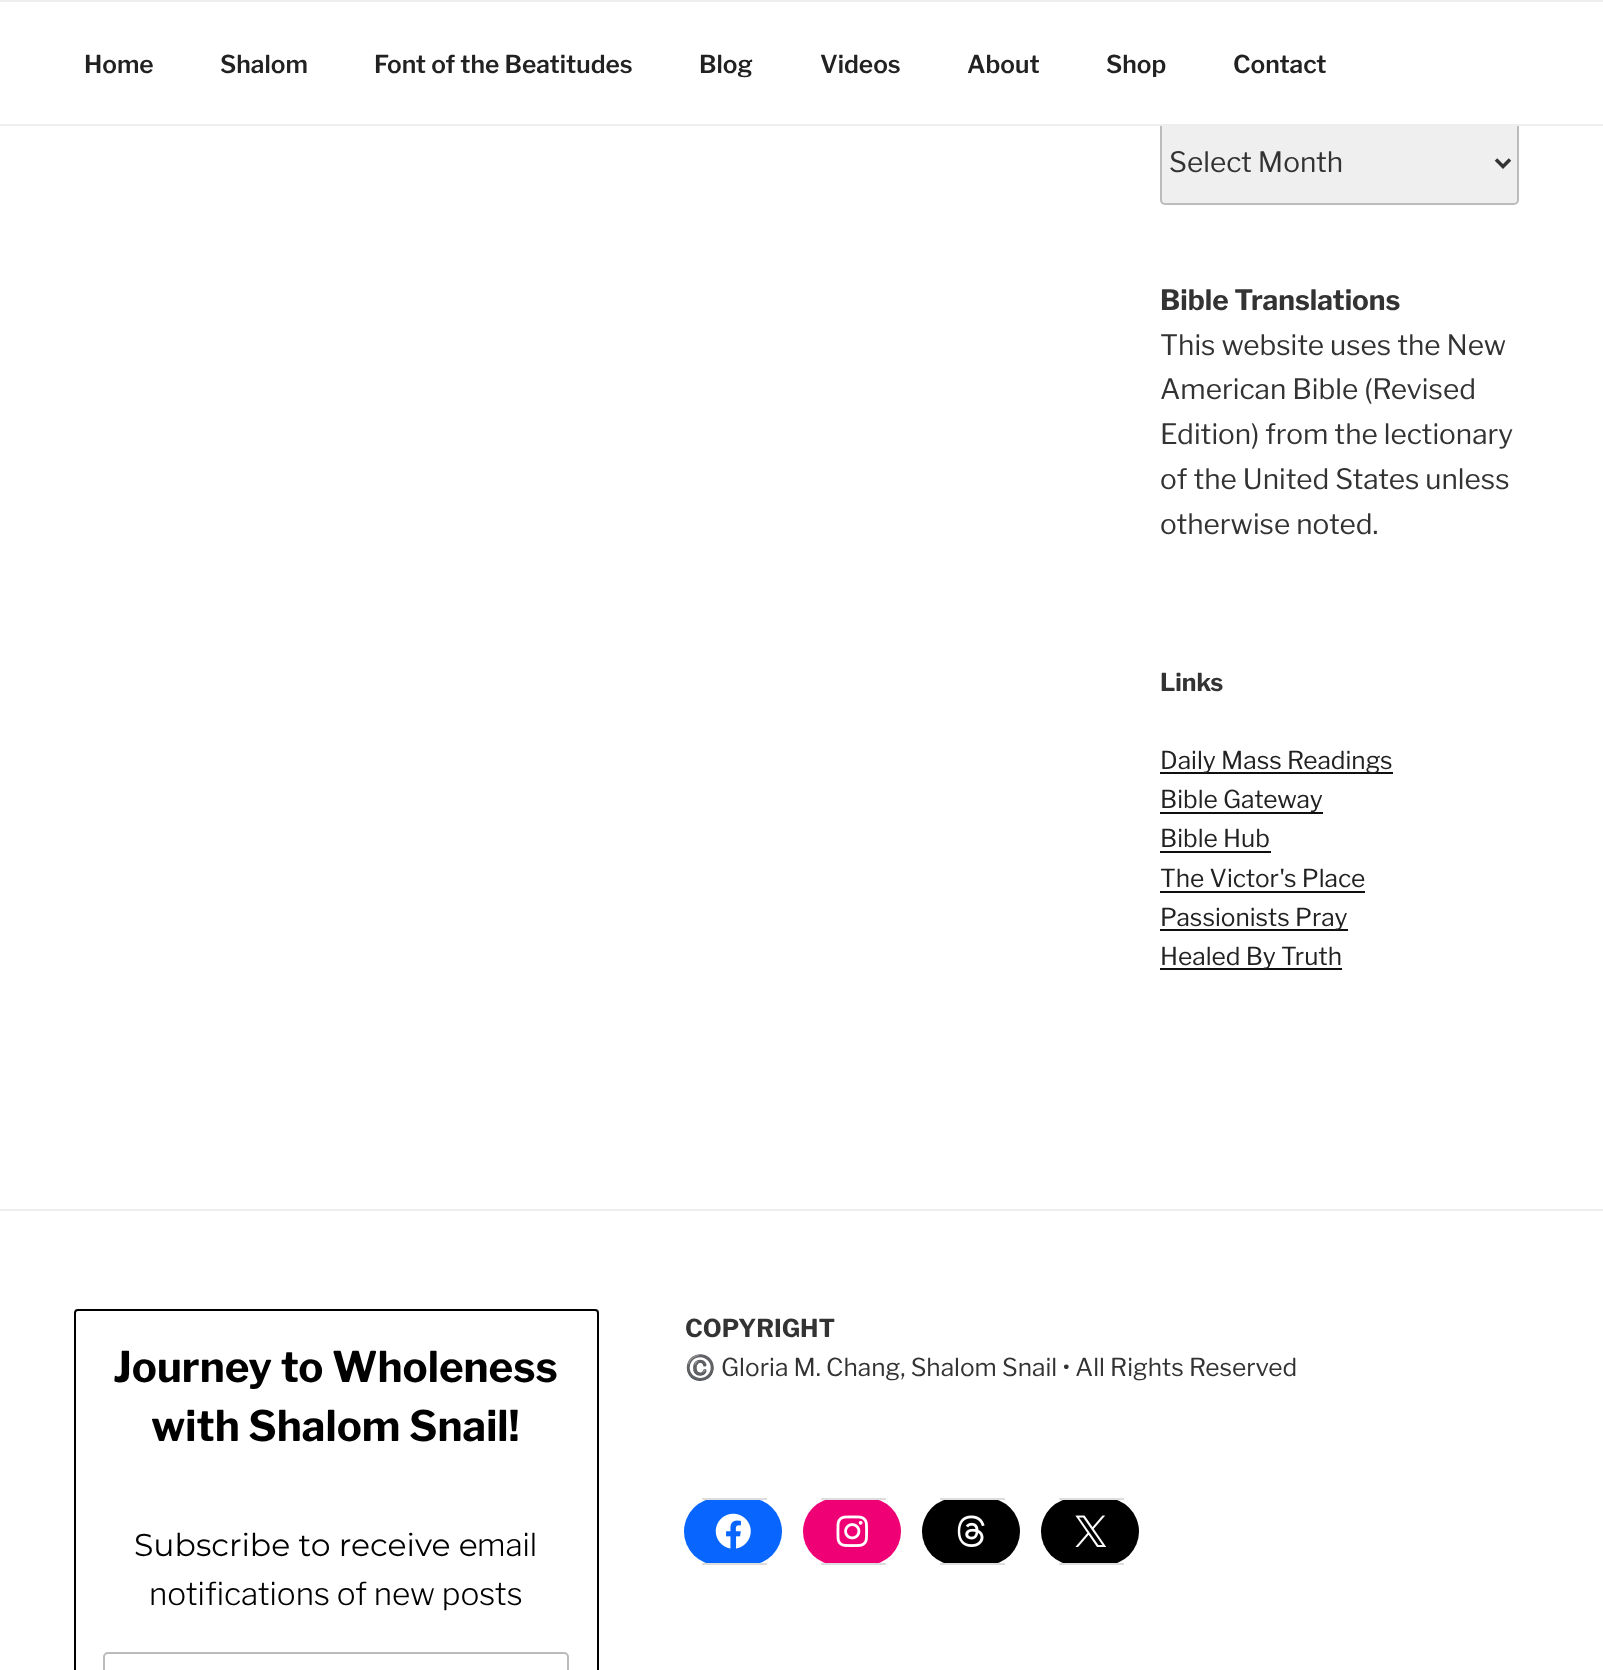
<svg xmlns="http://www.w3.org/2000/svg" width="1603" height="1670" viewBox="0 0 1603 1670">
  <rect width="100%" height="100%" fill="#ffffff"/>
  <rect x="1161" y="122" width="357" height="82" rx="4" fill="#efefef" stroke="#bbbbbb" stroke-width="2"/>
  <rect x="1160" y="121" width="359" height="3" fill="#ffffff"/>
  <rect x="0" y="0" width="1603" height="2" fill="#eeeeee"/>
  <rect x="0" y="124" width="1603" height="2" fill="#eeeeee"/>
  <text x="84" y="73" font-family="'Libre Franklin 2'" font-size="24.5" font-weight="100" fill="#222222">Home</text>
  <text x="220" y="73" font-family="'Libre Franklin 2'" font-size="24.5" font-weight="100" fill="#222222">Shalom</text>
  <text x="374" y="73" font-family="'Libre Franklin 2'" font-size="24.5" font-weight="100" fill="#222222">Font of the Beatitudes</text>
  <text x="699" y="73" font-family="'Libre Franklin 2'" font-size="24.5" font-weight="100" fill="#222222">Blog</text>
  <text x="820" y="73" font-family="'Libre Franklin 2'" font-size="24.5" font-weight="100" fill="#222222">Videos</text>
  <text x="967" y="73" font-family="'Libre Franklin 2'" font-size="24.5" font-weight="100" fill="#222222">About</text>
  <text x="1106" y="73" font-family="'Libre Franklin 2'" font-size="24.5" font-weight="100" fill="#222222">Shop</text>
  <text x="1233" y="73" font-family="'Libre Franklin 2'" font-size="24.5" font-weight="100" fill="#222222">Contact</text>
  <path d="M1496 159.5L1503 166.5L1510 159.5" fill="none" stroke="#333333" stroke-width="3.5"/>
  <text x="1169" y="172" font-family="Libre Franklin" font-size="28" fill="#333333">Select Month</text>
  <text x="1160" y="310" font-family="Libre Franklin" font-size="28" font-weight="bold" fill="#333333">Bible Translations</text>
  <text x="1160" y="355" font-family="Libre Franklin" font-size="28" fill="#333333">This website uses the New</text>
  <text x="1160" y="399" font-family="Libre Franklin" font-size="28" fill="#333333">American Bible (Revised</text>
  <text x="1160" y="444" font-family="Libre Franklin" font-size="28" fill="#333333">Edition) from the lectionary</text>
  <text x="1160" y="489" font-family="Libre Franklin" font-size="28" fill="#333333">of the United States unless</text>
  <text x="1160" y="534" font-family="Libre Franklin" font-size="28" fill="#333333">otherwise noted.</text>
  <text x="1160" y="691" font-family="Libre Franklin" font-size="24.5" font-weight="bold" fill="#333333">Links</text>
  <rect x="1160" y="772" width="233" height="2" fill="#0f0f0f"/>
  <text x="1160" y="769" font-family="Libre Franklin" font-size="24.5" fill="#222222">Daily Mass Readings</text>
  <rect x="1160" y="812" width="163" height="2" fill="#0f0f0f"/>
  <text x="1160" y="808" font-family="Libre Franklin" font-size="24.5" fill="#222222">Bible Gateway</text>
  <text x="1160" y="847" font-family="Libre Franklin" font-size="24.5" fill="#222222">Bible Hub</text>
  <rect x="1160" y="851" width="111" height="2" fill="#0f0f0f"/>
  <text x="1160" y="887" font-family="Libre Franklin" font-size="24.5" fill="#222222">The Victor's Place</text>
  <rect x="1160" y="891" width="205" height="2" fill="#0f0f0f"/>
  <rect x="1160" y="929" width="188" height="2" fill="#0f0f0f"/>
  <text x="1160" y="926" font-family="Libre Franklin" font-size="24.5" fill="#222222">Passionists Pray</text>
  <rect x="1160" y="968" width="182" height="2" fill="#0f0f0f"/>
  <text x="1160" y="965" font-family="Libre Franklin" font-size="24.5" fill="#222222">Healed By Truth</text>
  <rect x="0" y="1209" width="1603" height="2" fill="#eeeeee"/>
  <rect x="75" y="1310" width="523" height="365" rx="3" fill="none" stroke="#000000" stroke-width="2"/>
  <text x="113" y="1382" font-family="Libre Franklin" font-size="42" font-weight="bold" fill="#000000">Journey to Wholeness</text>
  <text x="151" y="1441" font-family="Libre Franklin" font-size="42" font-weight="bold" fill="#000000">with Shalom Snail!</text>
  <text x="134" y="1556" font-family="Montserrat" font-size="31.5" fill="#000000">Subscribe to receive e</text>
  <text x="477" y="1556" font-family="Libre Franklin" font-size="31.5" font-weight="100" fill="#000000">mail</text>
  <text x="149" y="1605" font-family="Libre Franklin" font-size="31.5" font-weight="100" fill="#000000">notifications of new posts</text>
  <rect x="104" y="1653" width="464" height="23" rx="4" fill="none" stroke="#bbbbbb" stroke-width="2"/>
  <text x="685" y="1337" font-family="Libre Franklin" font-size="24.5" font-weight="bold" fill="#333333">COPYRIGHT</text>
  <text x="685" y="1376" font-family="Noto Color Emoji" font-size="24.5" fill="#333333">©️</text>
  <text x="721" y="1376" font-family="Libre Franklin" font-size="24.5" fill="#333333">Gloria M. Chang, Shalom Snail • All Rights Reserved</text>
  <rect x="684" y="1498" width="98" height="67" rx="33.5" fill="#0866ff"/>
  <rect x="702" y="1498" width="65" height="2" fill="#dddddd"/>
  <rect x="702" y="1563" width="65" height="2" fill="#dddddd"/>
  <image x="715" y="1513" width="36" height="36" href="img1.png"/>
  <rect x="803" y="1498" width="98" height="67" rx="33.5" fill="#f00075"/>
  <rect x="821" y="1498" width="65" height="2" fill="#dddddd"/>
  <rect x="821" y="1563" width="65" height="2" fill="#dddddd"/>
  <image x="836" y="1515" width="32" height="32" href="img2.png"/>
  <rect x="922" y="1498" width="98" height="67" rx="33.5" fill="#000000"/>
  <rect x="940" y="1498" width="65" height="2" fill="#dddddd"/>
  <rect x="940" y="1563" width="65" height="2" fill="#dddddd"/>
  <image x="957" y="1515" width="28" height="32" href="img3.png"/>
  <rect x="1041" y="1498" width="98" height="67" rx="33.5" fill="#000000"/>
  <rect x="1059" y="1498" width="65" height="2" fill="#dddddd"/>
  <rect x="1059" y="1563" width="65" height="2" fill="#dddddd"/>
  <image x="1075" y="1515" width="32" height="32" href="img4.png"/>
</svg>
